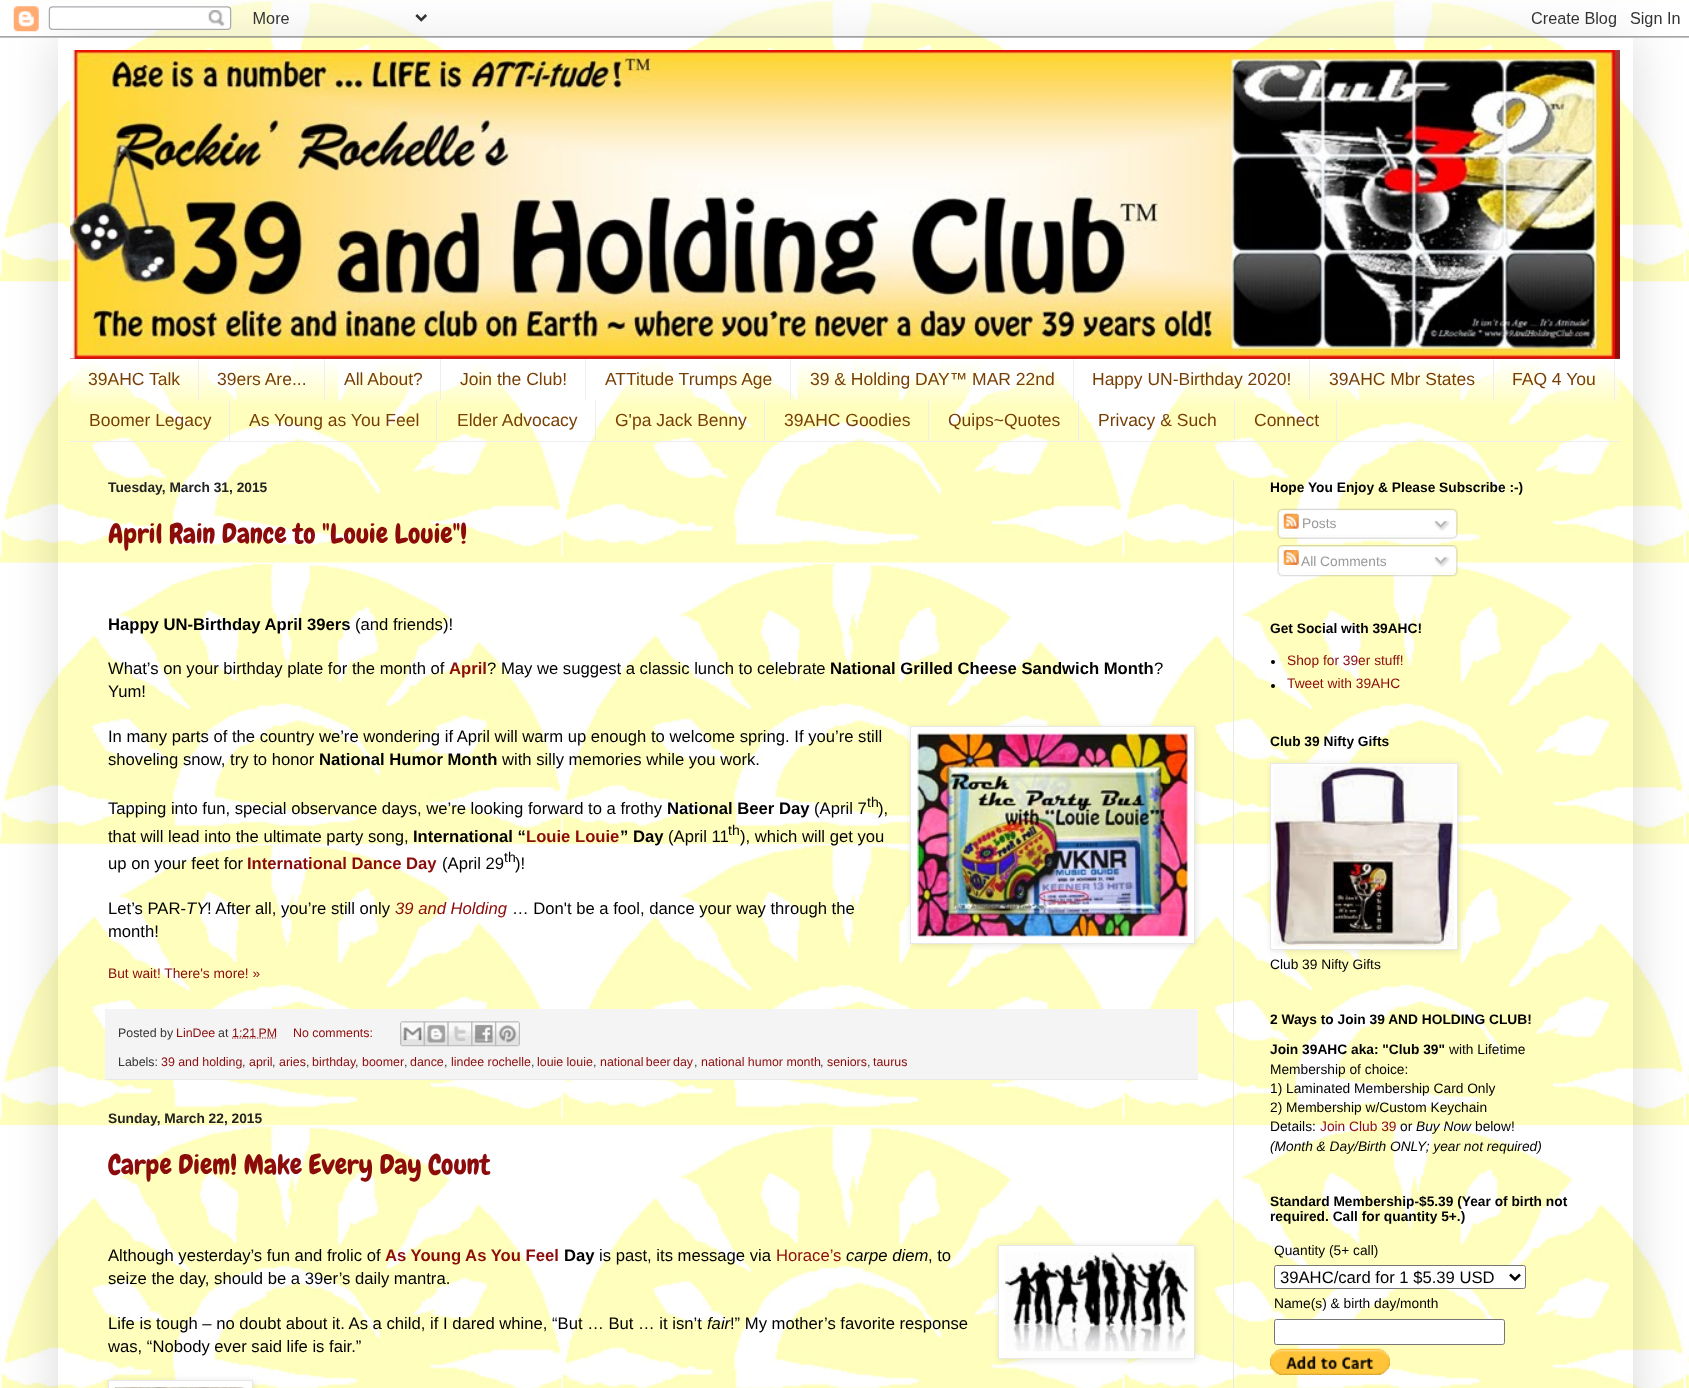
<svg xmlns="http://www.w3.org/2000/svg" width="1689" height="1388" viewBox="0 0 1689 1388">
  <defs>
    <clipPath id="clip1"><path d="M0 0H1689V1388H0ZM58 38H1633V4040H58Z" clip-rule="evenodd"/></clipPath>
    <filter id="blur1" x="-50%" y="-200%" width="200%" height="500%"><feGaussianBlur stdDeviation="25"/></filter>
    <filter id="blur2" x="-50%" y="-200%" width="200%" height="500%"><feGaussianBlur stdDeviation="3"/></filter>
  </defs>
  <rect width="100%" height="100%" fill="#ffffff"/>
  <image x="0" y="0" width="1689" height="1388" href="img1.png"/>
  <g clip-path="url(#clip1)">
    <rect x="58" y="38" width="1575" height="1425" fill="#000000" fill-opacity="0.15" filter="url(#blur1)"/>
  </g>
  <image x="0" y="0" width="1689" height="38" href="img2.png"/>
  <rect x="70" y="50" width="1550" height="309" fill="#8c0b0b"/>
  <image x="1615" y="50" width="5" height="166" href="img3.png"/>
  <image x="70" y="50" width="1545" height="309" href="img4.png"/>
  <image x="70" y="358" width="1550" height="47" href="img5.png"/>
  <rect x="70" y="441" width="1550" height="1" fill="#eeeeee"/>
  <rect x="198" y="359" width="1" height="41" fill="#eeeeee"/>
  <text x="88" y="385" font-family="Liberation Sans" font-size="17.5" fill="#783f04">39AHC Talk</text>
  <rect x="324" y="359" width="1" height="41" fill="#eeeeee"/>
  <text x="217" y="385" font-family="Liberation Sans" font-size="17.5" fill="#783f04">39ers Are...</text>
  <rect x="440" y="359" width="1" height="41" fill="#eeeeee"/>
  <text x="344" y="385" font-family="Liberation Sans" font-size="17.5" fill="#783f04">All About?</text>
  <rect x="585" y="359" width="1" height="41" fill="#eeeeee"/>
  <text x="460" y="385" font-family="Liberation Sans" font-size="17.5" fill="#783f04">Join the Club!</text>
  <rect x="790" y="359" width="1" height="41" fill="#eeeeee"/>
  <text x="605" y="385" font-family="Liberation Sans" font-size="17.5" fill="#783f04">ATTitude Trumps Age</text>
  <rect x="1073" y="359" width="1" height="41" fill="#eeeeee"/>
  <text x="810" y="385" font-family="Liberation Sans" font-size="17.5" fill="#783f04">39 &amp; Holding DAY™ MAR 22nd</text>
  <rect x="1309" y="359" width="1" height="41" fill="#eeeeee"/>
  <text x="1092" y="385" font-family="Liberation Sans" font-size="17.5" fill="#783f04">Happy UN-Birthday 2020!</text>
  <rect x="1493" y="359" width="1" height="41" fill="#eeeeee"/>
  <text x="1329" y="385" font-family="Liberation Sans" font-size="17.5" fill="#783f04">39AHC Mbr States</text>
  <rect x="1614" y="359" width="1" height="41" fill="#eeeeee"/>
  <text x="1512" y="385" font-family="Liberation Sans" font-size="17.5" fill="#783f04">FAQ 4 You</text>
  <rect x="229" y="400" width="1" height="41" fill="#eeeeee"/>
  <text x="89" y="426" font-family="Liberation Sans" font-size="17.5" fill="#783f04">Boomer Legacy</text>
  <rect x="436" y="400" width="1" height="41" fill="#eeeeee"/>
  <text x="249" y="426" font-family="Liberation Sans" font-size="17.5" fill="#783f04">As Young as You Feel</text>
  <rect x="595" y="400" width="1" height="41" fill="#eeeeee"/>
  <text x="457" y="426" font-family="Liberation Sans" font-size="17.5" fill="#783f04">Elder Advocacy</text>
  <rect x="764" y="400" width="1" height="41" fill="#eeeeee"/>
  <text x="615" y="426" font-family="Liberation Sans" font-size="17.5" fill="#783f04">G'pa Jack Benny</text>
  <rect x="928" y="400" width="1" height="41" fill="#eeeeee"/>
  <text x="784" y="426" font-family="Liberation Sans" font-size="17.5" fill="#783f04">39AHC Goodies</text>
  <rect x="1078" y="400" width="1" height="41" fill="#eeeeee"/>
  <text x="948" y="426" font-family="Liberation Sans" font-size="17.5" fill="#783f04">Quips~Quotes</text>
  <rect x="1234" y="400" width="1" height="41" fill="#eeeeee"/>
  <text x="1098" y="426" font-family="Liberation Sans" font-size="17.5" fill="#783f04">Privacy &amp; Such</text>
  <rect x="1336" y="400" width="1" height="41" fill="#eeeeee"/>
  <text x="1254" y="426" font-family="Liberation Sans" font-size="17.5" fill="#783f04">Connect</text>
  <rect x="1233" y="480" width="1" height="908" fill="#e8e8e8"/>
  <text x="108" y="492" font-family="Liberation Sans" font-size="13.75" font-weight="bold" fill="#222222">Tuesday, March 31, 2015</text>
  <text x="108" y="543" font-family="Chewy" font-size="27.5" fill="#8c0b0b">April Rain Dance to "Louie Louie"!</text>
  <text x="108" y="630" font-family="Liberation Sans" font-size="16.65" font-weight="bold" fill="#000000">Happy UN-Birthday April 39ers</text>
  <text x="355" y="630" font-family="Liberation Sans" font-size="16.65" fill="#000000">(and friends)!</text>
  <text x="108" y="674" font-family="Liberation Sans" font-size="16.65" fill="#000000">What’s on your birthday plate for the month of</text>
  <text x="449" y="674" font-family="Liberation Sans" font-size="16.65" font-weight="bold" fill="#8c0b0b">April</text>
  <text x="487" y="674" font-family="Liberation Sans" font-size="16.65" fill="#000000">? May we suggest a classic lunch to celebrate</text>
  <text x="830" y="674" font-family="Liberation Sans" font-size="16.65" font-weight="bold" fill="#000000">National Grilled Cheese Sandwich Month</text>
  <text x="1154" y="674" font-family="Liberation Sans" font-size="16.65" fill="#000000">?</text>
  <text x="108" y="697" font-family="Liberation Sans" font-size="16.65" fill="#000000">Yum!</text>
  <text x="108" y="742" font-family="Liberation Sans" font-size="16.65" fill="#000000">In many parts of the country we’re wondering if April will warm up enough to welcome spring. If you’re still</text>
  <rect x="911" y="728" width="285" height="217" fill="#000000" fill-opacity="0.1" filter="url(#blur2)"/>
  <rect x="910.5" y="726.5" width="284" height="217" fill="#ffffff" stroke="#e8e8e8"/>
  <image x="917" y="733" width="271" height="204" href="img6.png"/>
  <text x="108" y="765" font-family="Liberation Sans" font-size="16.65" fill="#000000">shoveling snow, try to honor</text>
  <text x="319" y="765" font-family="Liberation Sans" font-size="16.65" font-weight="bold" fill="#000000">National Humor Month</text>
  <text x="502" y="765" font-family="Liberation Sans" font-size="16.65" fill="#000000">with silly memories while you work.</text>
  <text x="108" y="814" font-family="Liberation Sans" font-size="16.65" fill="#000000">Tapping into fun, special observance days, we’re looking forward to a frothy</text>
  <text x="667" y="814" font-family="Liberation Sans" font-size="16.65" font-weight="bold" fill="#000000">National Beer Day</text>
  <text x="814" y="814" font-family="Liberation Sans" font-size="16.65" fill="#000000">(April 7</text>
  <text x="867" y="807" font-family="Liberation Sans" font-size="14" fill="#000000">th</text>
  <text x="878" y="814" font-family="Liberation Sans" font-size="16.65" fill="#000000">),</text>
  <text x="108" y="842" font-family="Liberation Sans" font-size="16.65" fill="#000000">that will lead into the ultimate party song,</text>
  <text x="413" y="842" font-family="Liberation Sans" font-size="16.65" font-weight="bold" fill="#000000">International “</text>
  <text x="526" y="842" font-family="Liberation Sans" font-size="16.65" font-weight="bold" fill="#8c0b0b">Louie Louie</text>
  <text x="620" y="842" font-family="Liberation Sans" font-size="16.65" font-weight="bold" fill="#000000">” Day</text>
  <text x="668" y="842" font-family="Liberation Sans" font-size="16.65" fill="#000000">(April 11</text>
  <text x="728" y="835" font-family="Liberation Sans" font-size="14" fill="#000000">th</text>
  <text x="740" y="842" font-family="Liberation Sans" font-size="16.65" fill="#000000">), which will get you</text>
  <text x="108" y="869" font-family="Liberation Sans" font-size="16.65" fill="#000000">up on your feet for</text>
  <text x="247" y="869" font-family="Liberation Sans" font-size="16.65" font-weight="bold" fill="#8c0b0b">International Dance Day</text>
  <text x="442" y="869" font-family="Liberation Sans" font-size="16.65" fill="#000000">(April 29</text>
  <text x="504" y="862" font-family="Liberation Sans" font-size="14" fill="#000000">th</text>
  <text x="515" y="869" font-family="Liberation Sans" font-size="16.65" fill="#000000">)!</text>
  <text x="108" y="914" font-family="Liberation Sans" font-size="16.65" fill="#000000">Let’s PAR-</text>
  <text x="186" y="914" font-family="Liberation Sans" font-size="16.65" font-style="italic" fill="#000000">TY</text>
  <text x="207" y="914" font-family="Liberation Sans" font-size="16.65" fill="#000000">! After all, you’re still only</text>
  <text x="395" y="914" font-family="Liberation Sans" font-size="16.65" font-style="italic" fill="#8c0b0b">39 and Holding</text>
  <text x="512" y="914" font-family="Liberation Sans" font-size="16.65" fill="#000000">… Don't be a fool, dance your way through the</text>
  <text x="108" y="937" font-family="Liberation Sans" font-size="16.65" fill="#000000">month!</text>
  <text x="108" y="978" font-family="Liberation Sans" font-size="13.75" fill="#8c0b0b">But wait! There's more! »</text>
  <rect x="105" y="1009" width="1093" height="70" fill="#f4f4f4"/>
  <rect x="105" y="1079" width="1093" height="1" fill="#e8e8e8"/>
  <text x="118" y="1037" font-family="Liberation Sans" font-size="12.4" fill="#353535">Posted by</text>
  <text x="176" y="1037" font-family="Liberation Sans" font-size="12.4" fill="#8c0b0b">LinDee</text>
  <text x="218" y="1037" font-family="Liberation Sans" font-size="12.4" fill="#353535">at</text>
  <text x="232" y="1037" font-family="Liberation Sans" font-size="12.4" fill="#8c0b0b">1:21 PM</text>
  <path d="M232 1038H277" fill="none" stroke="#8c0b0b" stroke-width="1.2" stroke-dasharray="1.25 1.25"/>
  <text x="293" y="1037" font-family="Liberation Sans" font-size="12.4" fill="#8c0b0b">No comments:</text>
  <image x="400" y="1021" width="25" height="26" href="img7.png"/>
  <image x="423" y="1021" width="26" height="26" href="img8.png"/>
  <image x="447" y="1021" width="26" height="26" href="img9.png"/>
  <image x="471" y="1021" width="26" height="26" href="img10.png"/>
  <image x="495" y="1021" width="25" height="26" href="img11.png"/>
  <text x="118" y="1066" font-family="Liberation Sans" font-size="12.4" fill="#353535">Labels:</text>
  <text x="161" y="1066" font-family="Liberation Sans" font-size="12.4" fill="#8c0b0b">39 and holding</text>
  <text x="242" y="1066" font-family="Liberation Sans" font-size="12.4" fill="#353535">,</text>
  <text x="249" y="1066" font-family="Liberation Sans" font-size="12.4" fill="#8c0b0b">april</text>
  <text x="272" y="1066" font-family="Liberation Sans" font-size="12.4" fill="#353535">,</text>
  <text x="279" y="1066" font-family="Liberation Sans" font-size="12.4" fill="#8c0b0b">aries</text>
  <text x="306" y="1066" font-family="Liberation Sans" font-size="12.4" fill="#353535">,</text>
  <text x="312" y="1066" font-family="Liberation Sans" font-size="12.4" fill="#8c0b0b">birthday</text>
  <text x="362" y="1066" font-family="Liberation Sans" font-size="12.4" fill="#8c0b0b">boomer</text>
  <text x="410" y="1066" font-family="Liberation Sans" font-size="12.4" fill="#8c0b0b">dance</text>
  <text x="451" y="1066" font-family="Liberation Sans" font-size="12.4" fill="#8c0b0b">lindee rochelle</text>
  <text x="537" y="1066" font-family="Liberation Sans" font-size="12.4" fill="#8c0b0b">louie louie</text>
  <text x="600" y="1066" word-spacing="-1" font-family="Liberation Sans" font-size="12.4" fill="#8c0b0b">national beer day</text>
  <text x="701" y="1066" font-family="Liberation Sans" font-size="12.4" fill="#8c0b0b">national humor month</text>
  <text x="827" y="1066" font-family="Liberation Sans" font-size="12.4" fill="#8c0b0b">seniors</text>
  <text x="873" y="1066" font-family="Liberation Sans" font-size="12.4" fill="#8c0b0b">taurus</text>
  <text x="355" y="1066" font-family="Liberation Sans" font-size="12.4" fill="#353535">,</text>
  <text x="404" y="1066" font-family="Liberation Sans" font-size="12.4" fill="#353535">,</text>
  <text x="444" y="1066" font-family="Liberation Sans" font-size="12.4" fill="#353535">,</text>
  <text x="531" y="1066" font-family="Liberation Sans" font-size="12.4" fill="#353535">,</text>
  <text x="593" y="1066" font-family="Liberation Sans" font-size="12.4" fill="#353535">,</text>
  <text x="694" y="1066" font-family="Liberation Sans" font-size="12.4" fill="#353535">,</text>
  <text x="820" y="1066" font-family="Liberation Sans" font-size="12.4" fill="#353535">,</text>
  <text x="867" y="1066" font-family="Liberation Sans" font-size="12.4" fill="#353535">,</text>
  <text x="108" y="1123" font-family="Liberation Sans" font-size="13.75" font-weight="bold" fill="#222222">Sunday, March 22, 2015</text>
  <text x="108" y="1174" font-family="Chewy" font-size="27.5" fill="#8c0b0b">Carpe Diem! Make Every Day Count</text>
  <text x="108" y="1261" font-family="Liberation Sans" font-size="16.65" fill="#000000">Although yesterday’s fun and frolic of</text>
  <text x="385" y="1261" font-family="Liberation Sans" font-size="16.65" font-weight="bold" fill="#8c0b0b">As Young As You Feel</text>
  <text x="564" y="1261" font-family="Liberation Sans" font-size="16.65" font-weight="bold" fill="#000000">Day</text>
  <text x="599" y="1261" font-family="Liberation Sans" font-size="16.65" fill="#000000">is past, its message via</text>
  <text x="776" y="1261" font-family="Liberation Sans" font-size="16.65" fill="#8c0b0b">Horace’s</text>
  <text x="846" y="1261" font-family="Liberation Sans" font-size="16.65" font-style="italic" fill="#000000">carpe diem</text>
  <text x="928" y="1261" font-family="Liberation Sans" font-size="16.65" fill="#000000">, to</text>
  <rect x="999" y="1246" width="197" height="114" fill="#000000" fill-opacity="0.1" filter="url(#blur2)"/>
  <rect x="998.5" y="1245.5" width="196" height="113" fill="#ffffff" stroke="#e8e8e8"/>
  <image x="1005" y="1252" width="183" height="100" href="img12.png"/>
  <text x="108" y="1284" font-family="Liberation Sans" font-size="16.65" fill="#000000">seize the day, should be a 39er’s daily mantra.</text>
  <text x="108" y="1329" font-family="Liberation Sans" font-size="16.65" fill="#000000">Life is tough – no doubt about it. As a child, if I dared whine, “But … But … it isn’t</text>
  <text x="707" y="1329" font-family="Liberation Sans" font-size="16.65" font-style="italic" fill="#000000">fair</text>
  <text x="730" y="1329" font-family="Liberation Sans" font-size="16.65" fill="#000000">!” My mother’s favorite response</text>
  <text x="108" y="1352" font-family="Liberation Sans" font-size="16.65" fill="#000000">was, “Nobody ever said life is fair.”</text>
  <rect x="109" y="1381" width="145" height="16" fill="#000000" fill-opacity="0.1" filter="url(#blur2)"/>
  <rect x="108.5" y="1380.5" width="144" height="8" fill="#ffffff" stroke="#e8e8e8"/>
  <image x="115" y="1387" width="130" height="1" href="img13.png"/>
  <text x="1270" y="492" font-family="Liberation Sans" font-size="13.75" font-weight="bold" fill="#000000">Hope You Enjoy &amp; Please Subscribe :-)</text>
  <image x="1277" y="508" width="181" height="27" href="img14.png"/>
  <image x="1283" y="513" width="16" height="16" href="img15.png"/>
  <text x="1302" y="528" font-family="Liberation Sans" font-size="13.75" fill="#999999">Posts</text>
  <image x="1434" y="520" width="16" height="11" href="img16.png"/>
  <image x="1277" y="535" width="181" height="4" href="img17.png"/>
  <image x="1277" y="545" width="181" height="28" href="img18.png"/>
  <image x="1283" y="550" width="16" height="15" href="img19.png"/>
  <text x="1301" y="566" font-family="Liberation Sans" font-size="13.75" fill="#999999">All Comments</text>
  <image x="1434" y="556" width="16" height="12" href="img20.png"/>
  <image x="1277" y="572" width="181" height="5" href="img21.png"/>
  <text x="1270" y="633" font-family="Liberation Sans" font-size="13.75" font-weight="bold" fill="#000000">Get Social with 39AHC!</text>
  <circle cx="1273" cy="662" r="2" fill="#000000"/>
  <text x="1287" y="665" font-family="Liberation Sans" font-size="13.75" fill="#8c0b0b">Shop for 39er stuff!</text>
  <circle cx="1273" cy="686" r="2" fill="#000000"/>
  <text x="1287" y="688" font-family="Liberation Sans" font-size="13.75" fill="#8c0b0b">Tweet with 39AHC</text>
  <text x="1270" y="746" font-family="Liberation Sans" font-size="13.75" font-weight="bold" fill="#000000">Club 39 Nifty Gifts</text>
  <rect x="1271" y="764" width="188" height="187" fill="#000000" fill-opacity="0.1" filter="url(#blur2)"/>
  <rect x="1270.5" y="763.5" width="187" height="186" fill="#ffffff" stroke="#e8e8e8"/>
  <image x="1273" y="766" width="181" height="181" href="img22.png"/>
  <text x="1270" y="969" font-family="Liberation Sans" font-size="13.75" fill="#000000">Club 39 Nifty Gifts</text>
  <text x="1270" y="1024" font-family="Liberation Sans" font-size="13.75" font-weight="bold" fill="#000000">2 Ways to Join 39 AND HOLDING CLUB!</text>
  <text x="1270" y="1054" font-family="Liberation Sans" font-size="13.75" font-weight="bold" fill="#000000">Join 39AHC aka: "Club 39"</text>
  <text x="1449" y="1054" font-family="Liberation Sans" font-size="13.75" fill="#000000">with Lifetime</text>
  <text x="1270" y="1074" font-family="Liberation Sans" font-size="13.75" fill="#000000">Membership of choice:</text>
  <text x="1270" y="1093" font-family="Liberation Sans" font-size="13.75" fill="#000000">1) Laminated Membership Card Only</text>
  <text x="1270" y="1112" font-family="Liberation Sans" font-size="13.75" fill="#000000">2) Membership w/Custom Keychain</text>
  <text x="1270" y="1131" font-family="Liberation Sans" font-size="13.75" fill="#000000">Details:</text>
  <text x="1320" y="1131" font-family="Liberation Sans" font-size="13.75" fill="#8c0b0b">Join Club 39</text>
  <text x="1400" y="1131" font-family="Liberation Sans" font-size="13.75" fill="#000000">or</text>
  <text x="1416" y="1131" font-family="Liberation Sans" font-size="13.75" font-style="italic" fill="#000000">Buy Now</text>
  <text x="1475" y="1131" font-family="Liberation Sans" font-size="13.75" fill="#000000">below!</text>
  <text x="1270" y="1151" font-family="Liberation Sans" font-size="13.75" font-style="italic" fill="#000000">(Month &amp; Day/Birth ONLY; year not required)</text>
  <text x="1270" y="1206" font-family="Liberation Sans" font-size="13.75" font-weight="bold" fill="#000000">Standard Membership-$5.39 (Year of birth not</text>
  <text x="1270" y="1221" font-family="Liberation Sans" font-size="13.75" font-weight="bold" fill="#000000">required. Call for quantity 5+.)</text>
  <text x="1274" y="1255" font-family="Liberation Sans" font-size="13.75" fill="#000000">Quantity (5+ call)</text>
  <rect x="1274.5" y="1265.5" width="251" height="23" rx="2" fill="#ffffff" stroke="#767676"/>
  <path d="M1510 1274.5L1515 1279.5L1520 1274.5" fill="none" stroke="#000000" stroke-width="2.5"/>
  <text x="1280" y="1283" font-family="Liberation Sans" font-size="16.65" fill="#000000">39AHC/card for 1 $5.39 USD</text>
  <text x="1274" y="1308" font-family="Liberation Sans" font-size="13.75" fill="#000000">Name(s) &amp; birth day/month</text>
  <rect x="1274.5" y="1319.5" width="230" height="25" rx="2" fill="#ffffff" stroke="#767676"/>
  <image x="1270" y="1348" width="120" height="27" href="img23.png"/>
</svg>
